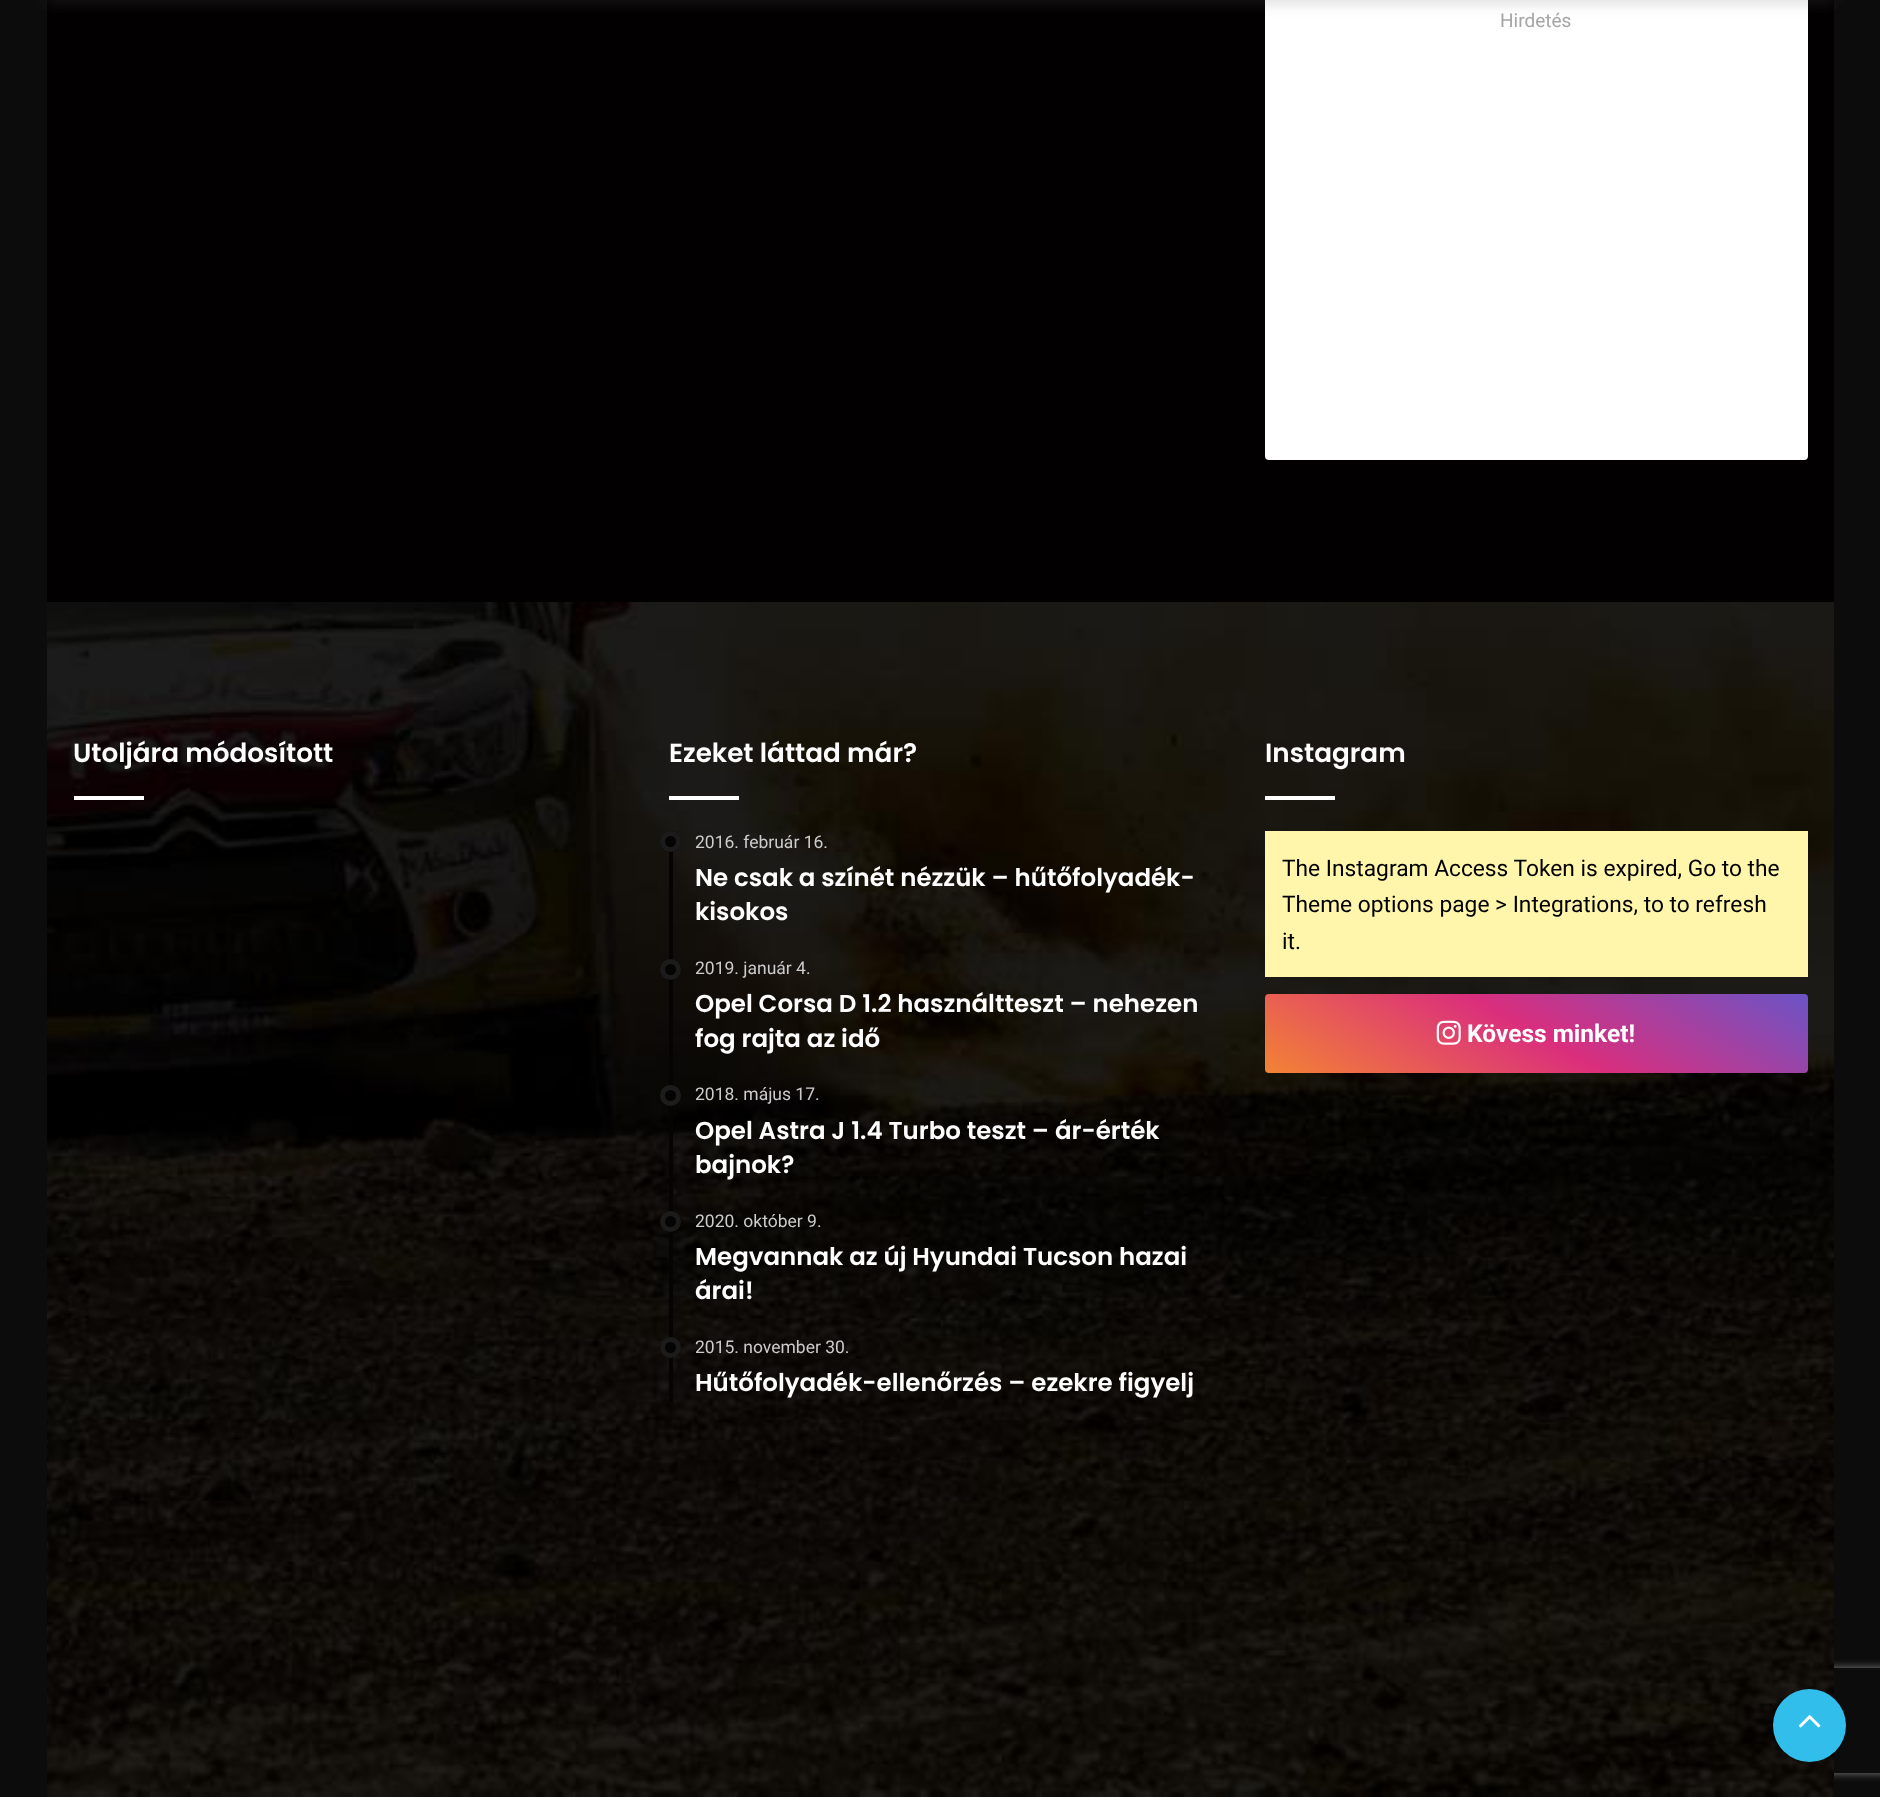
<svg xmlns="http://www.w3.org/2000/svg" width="1880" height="1797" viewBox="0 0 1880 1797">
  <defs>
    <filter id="blur1" x="-50%" y="-200%" width="200%" height="500%"><feGaussianBlur stdDeviation="7"/></filter>
    <clipPath id="clip1"><path d="M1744 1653H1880V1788H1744ZM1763 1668H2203C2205 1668 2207 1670 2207 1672V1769C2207 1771 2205 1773 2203 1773H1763C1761 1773 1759 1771 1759 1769V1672C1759 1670 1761 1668 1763 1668Z" clip-rule="evenodd"/></clipPath>
    <filter id="blur2" x="-50%" y="-200%" width="200%" height="500%"><feGaussianBlur stdDeviation="4.5"/></filter>
    <linearGradient id="g1" gradientUnits="userSpaceOnUse" x1="1453" y1="1180" x2="1620" y2="887"><stop offset="0" stop-color="#f38334"/><stop offset="0.5" stop-color="#da2e7d"/><stop offset="1" stop-color="#6b54c6"/></linearGradient>
  </defs>
  <rect width="100%" height="100%" fill="#0c0c0c"/>
  <rect x="47" y="0" width="1787" height="602" fill="#020000"/>
  <rect x="1266" y="-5" width="541" height="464" rx="3" fill="#ffffff" stroke="#ffffff" stroke-width="2"/>
  <rect x="47" y="-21" width="1787" height="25" fill="#636363" fill-opacity="0.2" filter="url(#blur1)"/>
  <text x="1500" y="27" font-family="Roboto" font-size="19" fill="#a5a5a5">Hirdetés</text>
  <g clip-path="url(#clip1)">
    <rect x="1759" y="1668" width="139" height="105" rx="4" fill="#808080" filter="url(#blur2)"/>
  </g>
  <image x="47" y="602" width="1787" height="1195" href="img1.png"/>
  <text x="73" y="762" font-family="Poppins" font-size="26.25" font-weight="600" fill="#ffffff">Utoljára módosított</text>
  <rect x="74" y="796" width="70" height="4" fill="#ffffff"/>
  <text x="669" y="762" font-family="Poppins" font-size="26.25" font-weight="600" fill="#ffffff">Ezeket láttad már?</text>
  <rect x="669" y="796" width="70" height="4" fill="#ffffff"/>
  <rect x="669" y="831" width="4" height="571" fill="#040404"/>
  <circle cx="670.5" cy="841.5" r="10.5" fill="#040404"/>
  <circle cx="670.5" cy="841.5" r="8" fill="none" stroke="#222222" stroke-opacity="0.8" stroke-width="5"/>
  <text x="695" y="848" font-family="Roboto" font-size="17.5" fill="#cccccc">2016. február 16.</text>
  <text x="695" y="886" font-family="Poppins" font-size="24.5" font-weight="600" fill="#ffffff">Ne csak a színét nézzük – hűtőfolyadék-</text>
  <text x="695" y="920" font-family="Poppins" font-size="24.5" font-weight="600" fill="#ffffff">kisokos</text>
  <circle cx="670.5" cy="969.5" r="10.5" fill="#040404"/>
  <circle cx="670.5" cy="969.5" r="8" fill="none" stroke="#222222" stroke-opacity="0.8" stroke-width="5"/>
  <text x="695" y="974" font-family="Roboto" font-size="17.5" fill="#cccccc">2019. január 4.</text>
  <text x="695" y="1012" font-family="Poppins" font-size="24.5" font-weight="600" fill="#ffffff">Opel Corsa D 1.2 használtteszt – nehezen</text>
  <text x="695" y="1047" font-family="Poppins" font-size="24.5" font-weight="600" fill="#ffffff">fog rajta az idő</text>
  <circle cx="670.5" cy="1095.5" r="8" fill="#040404" stroke="#1c1c1c" stroke-width="5"/>
  <text x="695" y="1100" font-family="Roboto" font-size="17.5" fill="#cccccc">2018. május 17.</text>
  <text x="695" y="1139" font-family="Poppins" font-size="24.5" font-weight="600" fill="#ffffff">Opel Astra J 1.4 Turbo teszt – ár-érték</text>
  <text x="695" y="1173" font-family="Poppins" font-size="24.5" font-weight="600" fill="#ffffff">bajnok?</text>
  <circle cx="670.5" cy="1221.5" r="10.5" fill="#040404"/>
  <circle cx="670.5" cy="1221.5" r="8" fill="none" stroke="#222222" stroke-opacity="0.8" stroke-width="5"/>
  <text x="695" y="1227" font-family="Roboto" font-size="17.5" fill="#cccccc">2020. október 9.</text>
  <text x="695" y="1265" font-family="Poppins" font-size="24.5" font-weight="600" fill="#ffffff">Megvannak az új Hyundai Tucson hazai</text>
  <text x="695" y="1299" font-family="Poppins" font-size="24.5" font-weight="600" fill="#ffffff">árai!</text>
  <circle cx="670.5" cy="1347.5" r="10.5" fill="#040404"/>
  <circle cx="670.5" cy="1347.5" r="8" fill="none" stroke="#222222" stroke-opacity="0.8" stroke-width="5"/>
  <text x="695" y="1353" font-family="Roboto" font-size="17.5" fill="#cccccc">2015. november 30.</text>
  <text x="695" y="1391" font-family="Poppins" font-size="24.5" font-weight="600" fill="#ffffff">Hűtőfolyadék-ellenőrzés – ezekre figyelj</text>
  <text x="1265" y="762" font-family="Poppins" font-size="26.25" font-weight="600" fill="#ffffff">Instagram</text>
  <rect x="1265" y="796" width="70" height="4" fill="#ffffff"/>
  <rect x="1265" y="831" width="543" height="146" fill="#fff6ac"/>
  <text x="1282" y="876" font-family="Roboto" font-size="22.75" fill="#000000">The Instagram Access Token is expired, Go to the</text>
  <text x="1282" y="912" font-family="Roboto" font-size="22.75" fill="#000000">Theme options page &gt; Integrations, to to refresh</text>
  <text x="1282" y="949" font-family="Roboto" font-size="22.75" fill="#000000">it.</text>
  <rect x="1265" y="994" width="543" height="79" rx="4" fill="url(#g1)"/>
  <image x="1436" y="1020" width="25" height="25" href="img2.png"/>
  <text x="1467" y="1042" font-family="Roboto" font-size="24.5" font-weight="bold" fill="#ffffff">Kövess minket!</text>
  <circle cx="1809.5" cy="1725.5" r="36.5" fill="#32beeb"/>
  <image x="1798" y="1715" width="23" height="13" href="img3.png"/>
</svg>
